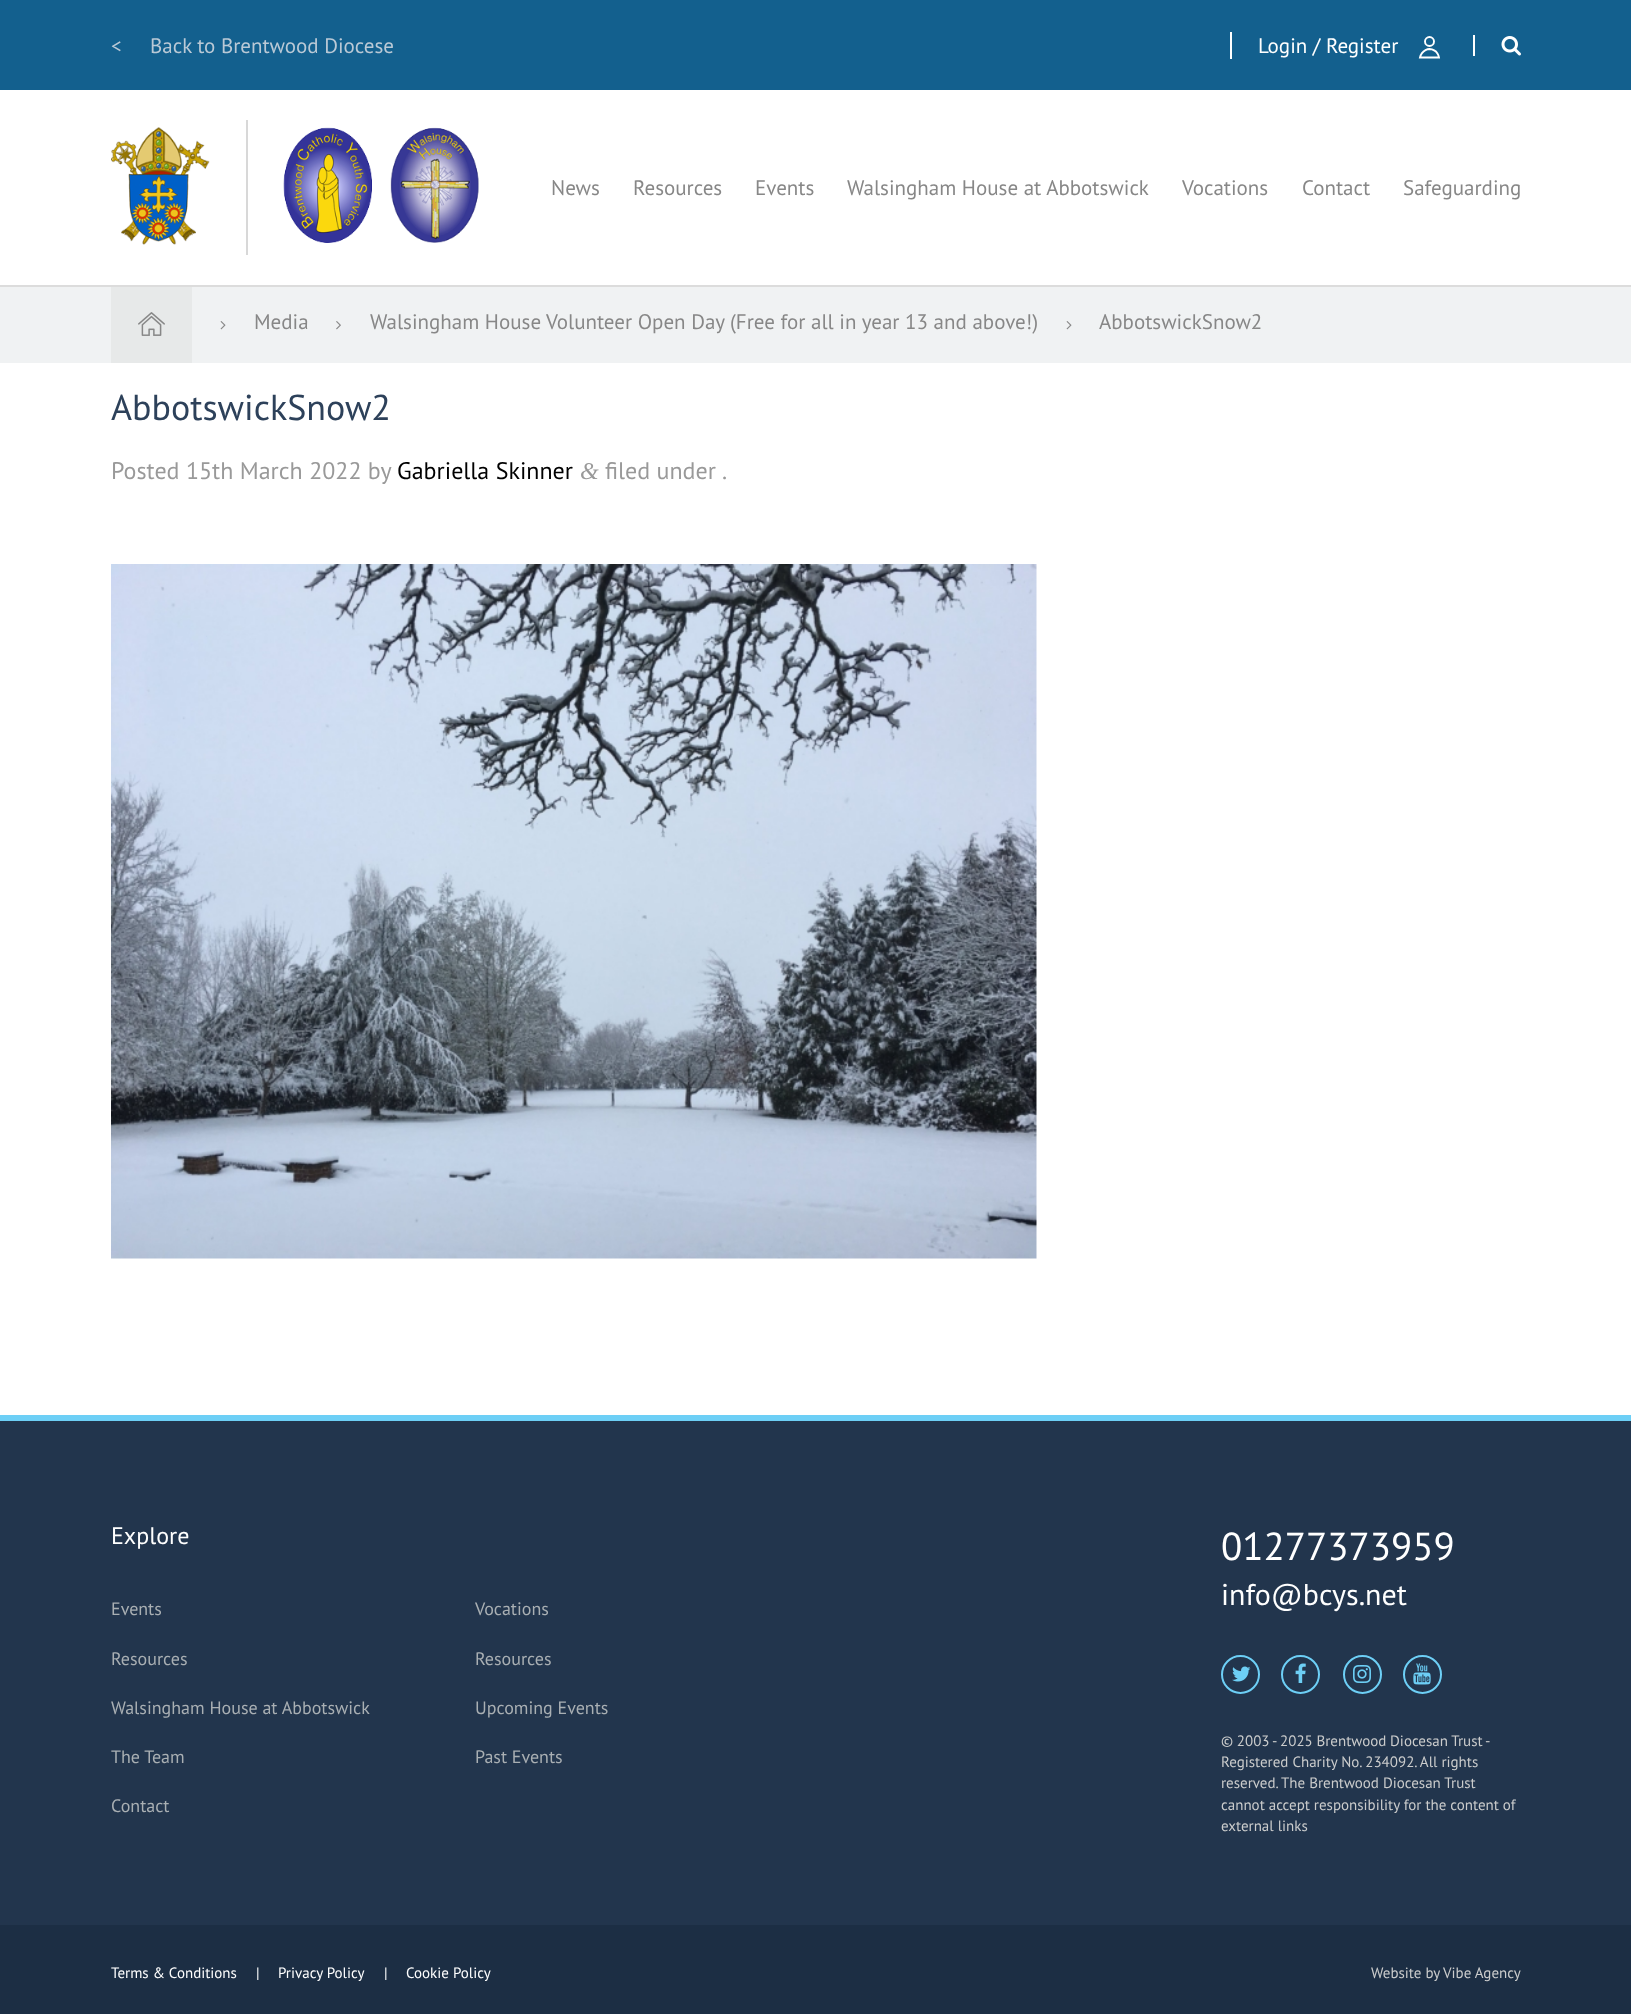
<svg xmlns="http://www.w3.org/2000/svg" width="1631" height="2014" viewBox="0 0 1631 2014">
  <rect width="100%" height="100%" fill="#ffffff"/>
  <rect x="0" y="0" width="1631" height="90" fill="#13608e"/>
  <text x="111" y="53" font-family="PT Sans" font-size="21" fill="#bac9d6">&lt;</text>
  <text x="150" y="53" font-family="PT Sans" font-size="21" fill="#bac9d6">Back to Brentwood Diocese</text>
  <text x="1258" y="53" font-family="PT Sans" font-size="21" fill="#ffffff">Login / Register</text>
  <rect x="1230" y="32" width="2" height="27" fill="#ffffff"/>
  <circle cx="1429.5" cy="41.5" r="4.5" fill="none" stroke="#ffffff" stroke-width="1.9"/>
  <path d="M1420 57.5H1439C1439 57.5 1438 49.5 1429.5 49C1429.5 49 1422 49 1420 57.5Z" fill="none" stroke="#ffffff" stroke-width="1.9"/>
  <rect x="1473" y="35" width="2" height="21" fill="#ffffff"/>
  <image x="1501" y="36" width="20" height="20" href="img1.png"/>
  <image x="111" y="127" width="99" height="118" href="img2.png"/>
  <rect x="246" y="120" width="2" height="135" fill="#d8d8d8"/>
  <image x="283" y="127" width="196" height="116" href="img3.png"/>
  <text x="551" y="195" font-family="PT Sans" font-size="21" fill="#878787">News</text>
  <text x="633" y="195" font-family="PT Sans" font-size="21" fill="#878787">Resources</text>
  <text x="755" y="195" font-family="PT Sans" font-size="21" fill="#878787">Events</text>
  <text x="847" y="195" font-family="PT Sans" font-size="21" fill="#878787">Walsingham House at Abbotswick</text>
  <text x="1182" y="195" font-family="PT Sans" font-size="21" fill="#878787">Vocations</text>
  <text x="1302" y="195" font-family="PT Sans" font-size="21" fill="#878787">Contact</text>
  <text x="1403" y="195" font-family="PT Sans" font-size="21" fill="#878787">Safeguarding</text>
  <rect x="0" y="285" width="1631" height="2" fill="#dcdcdc"/>
  <rect x="0" y="287" width="1631" height="76" fill="#f0f2f3"/>
  <rect x="111" y="287" width="81" height="76" fill="#e7e9e9"/>
  <image x="138" y="312" width="27" height="24" href="img4.png"/>
  <image x="220" y="321" width="6" height="9" href="img5.png"/>
  <text x="254" y="329" font-family="PT Sans" font-size="21" fill="#878787">Media</text>
  <image x="336" y="321" width="5" height="9" href="img6.png"/>
  <text x="370" y="329" font-family="PT Sans" font-size="21" fill="#878787">Walsingham House Volunteer Open Day (Free for all in year 13 and above!)</text>
  <image x="1066" y="321" width="6" height="9" href="img5.png"/>
  <text x="1099" y="329" font-family="PT Sans" font-size="21" fill="#878787">AbbotswickSnow2</text>
  <text x="111" y="420" font-family="PT Sans" font-size="36" fill="#2d415a">AbbotswickSnow2</text>
  <text x="111" y="479" font-family="PT Sans" font-size="24" fill="#999999">Posted 15th March 2022 by</text>
  <text x="397" y="479" font-family="PT Sans" font-size="24" fill="#000000">Gabriella Skinner</text>
  <text x="580" y="479" font-family="Liberation Serif" font-size="24" font-style="italic" fill="#999999">&amp;</text>
  <text x="605" y="479" font-family="PT Sans" font-size="24" fill="#999999">filed under .</text>
  <image x="111" y="564" width="926" height="695" href="img7.png"/>
  <rect x="0" y="1421" width="1631" height="504" fill="#22354d"/>
  <rect x="0" y="1415" width="1631" height="6" fill="#6dcff6"/>
  <text x="111" y="1544" font-family="PT Sans" font-size="24" fill="#ffffff">Explore</text>
  <text x="1221" y="1560" font-family="PT Sans" font-size="39" fill="#ffffff">01277373959</text>
  <text x="1221" y="1605" font-family="PT Sans" font-size="30" fill="#ffffff">info@bcys.net</text>
  <circle cx="1240.5" cy="1674.5" r="18.5" fill="none" stroke="#6dcff6" stroke-width="2"/>
  <image x="1232" y="1666" width="19" height="16" href="img8.png"/>
  <circle cx="1300.5" cy="1674.5" r="18.5" fill="none" stroke="#6dcff6" stroke-width="2"/>
  <image x="1295" y="1663" width="11" height="20" href="img9.png"/>
  <circle cx="1362.5" cy="1674.5" r="18.5" fill="none" stroke="#6dcff6" stroke-width="2"/>
  <image x="1353" y="1665" width="18" height="18" href="img10.png"/>
  <circle cx="1422.5" cy="1674.5" r="18.5" fill="none" stroke="#6dcff6" stroke-width="2"/>
  <image x="1413" y="1663" width="18" height="22" href="img11.png"/>
  <text x="1221" y="1746" word-spacing="-0.25" font-family="PT Sans" font-size="15" fill="#cbcccc">© 2003 - 2025 Brentwood Diocesan Trust -</text>
  <text x="1221" y="1767" font-family="PT Sans" font-size="15" fill="#cbcccc">Registered Charity No. 234092. All rights</text>
  <text x="1221" y="1788" font-family="PT Sans" font-size="15" fill="#cbcccc">reserved.</text>
  <text x="1281" y="1788" font-family="PT Sans" font-size="15" fill="#cbcccc">The Brentwood Diocesan Trust</text>
  <text x="1221" y="1810" font-family="PT Sans" font-size="15" fill="#cbcccc">cannot accept responsibility for the content of</text>
  <text x="1221" y="1831" font-family="PT Sans" font-size="15" fill="#cbcccc">external links</text>
  <text x="111" y="1615" font-family="PT Sans" font-size="18" fill="#a9afb3">Events</text>
  <text x="111" y="1665" font-family="PT Sans" font-size="18" fill="#a9afb3">Resources</text>
  <text x="111" y="1714" font-family="PT Sans" font-size="18" fill="#a9afb3">Walsingham House at Abbotswick</text>
  <text x="111" y="1763" font-family="PT Sans" font-size="18" fill="#a9afb3">The Team</text>
  <text x="111" y="1812" font-family="PT Sans" font-size="18" fill="#a9afb3">Contact</text>
  <text x="475" y="1615" font-family="PT Sans" font-size="18" fill="#a9afb3">Vocations</text>
  <text x="475" y="1665" font-family="PT Sans" font-size="18" fill="#a9afb3">Resources</text>
  <text x="475" y="1714" font-family="PT Sans" font-size="18" fill="#a9afb3">Upcoming Events</text>
  <text x="475" y="1763" font-family="PT Sans" font-size="18" fill="#a9afb3">Past Events</text>
  <rect x="0" y="1925" width="1631" height="89" fill="#1c2e44"/>
  <text x="111" y="1978" font-family="PT Sans" font-size="15" fill="#ffffff">Terms &amp; Conditions</text>
  <text x="256" y="1978" font-family="PT Sans" font-size="15" fill="#ffffff">|</text>
  <text x="278" y="1978" font-family="PT Sans" font-size="15" fill="#ffffff">Privacy Policy</text>
  <text x="384" y="1978" font-family="PT Sans" font-size="15" fill="#ffffff">|</text>
  <text x="406" y="1978" font-family="PT Sans" font-size="15" fill="#ffffff">Cookie Policy</text>
  <text x="1371" y="1978" font-family="PT Sans" font-size="15" fill="#cbcccc">Website by</text>
  <text x="1443" y="1978" font-family="PT Sans" font-size="15" fill="#cbcccc">Vibe Agency</text>
</svg>
